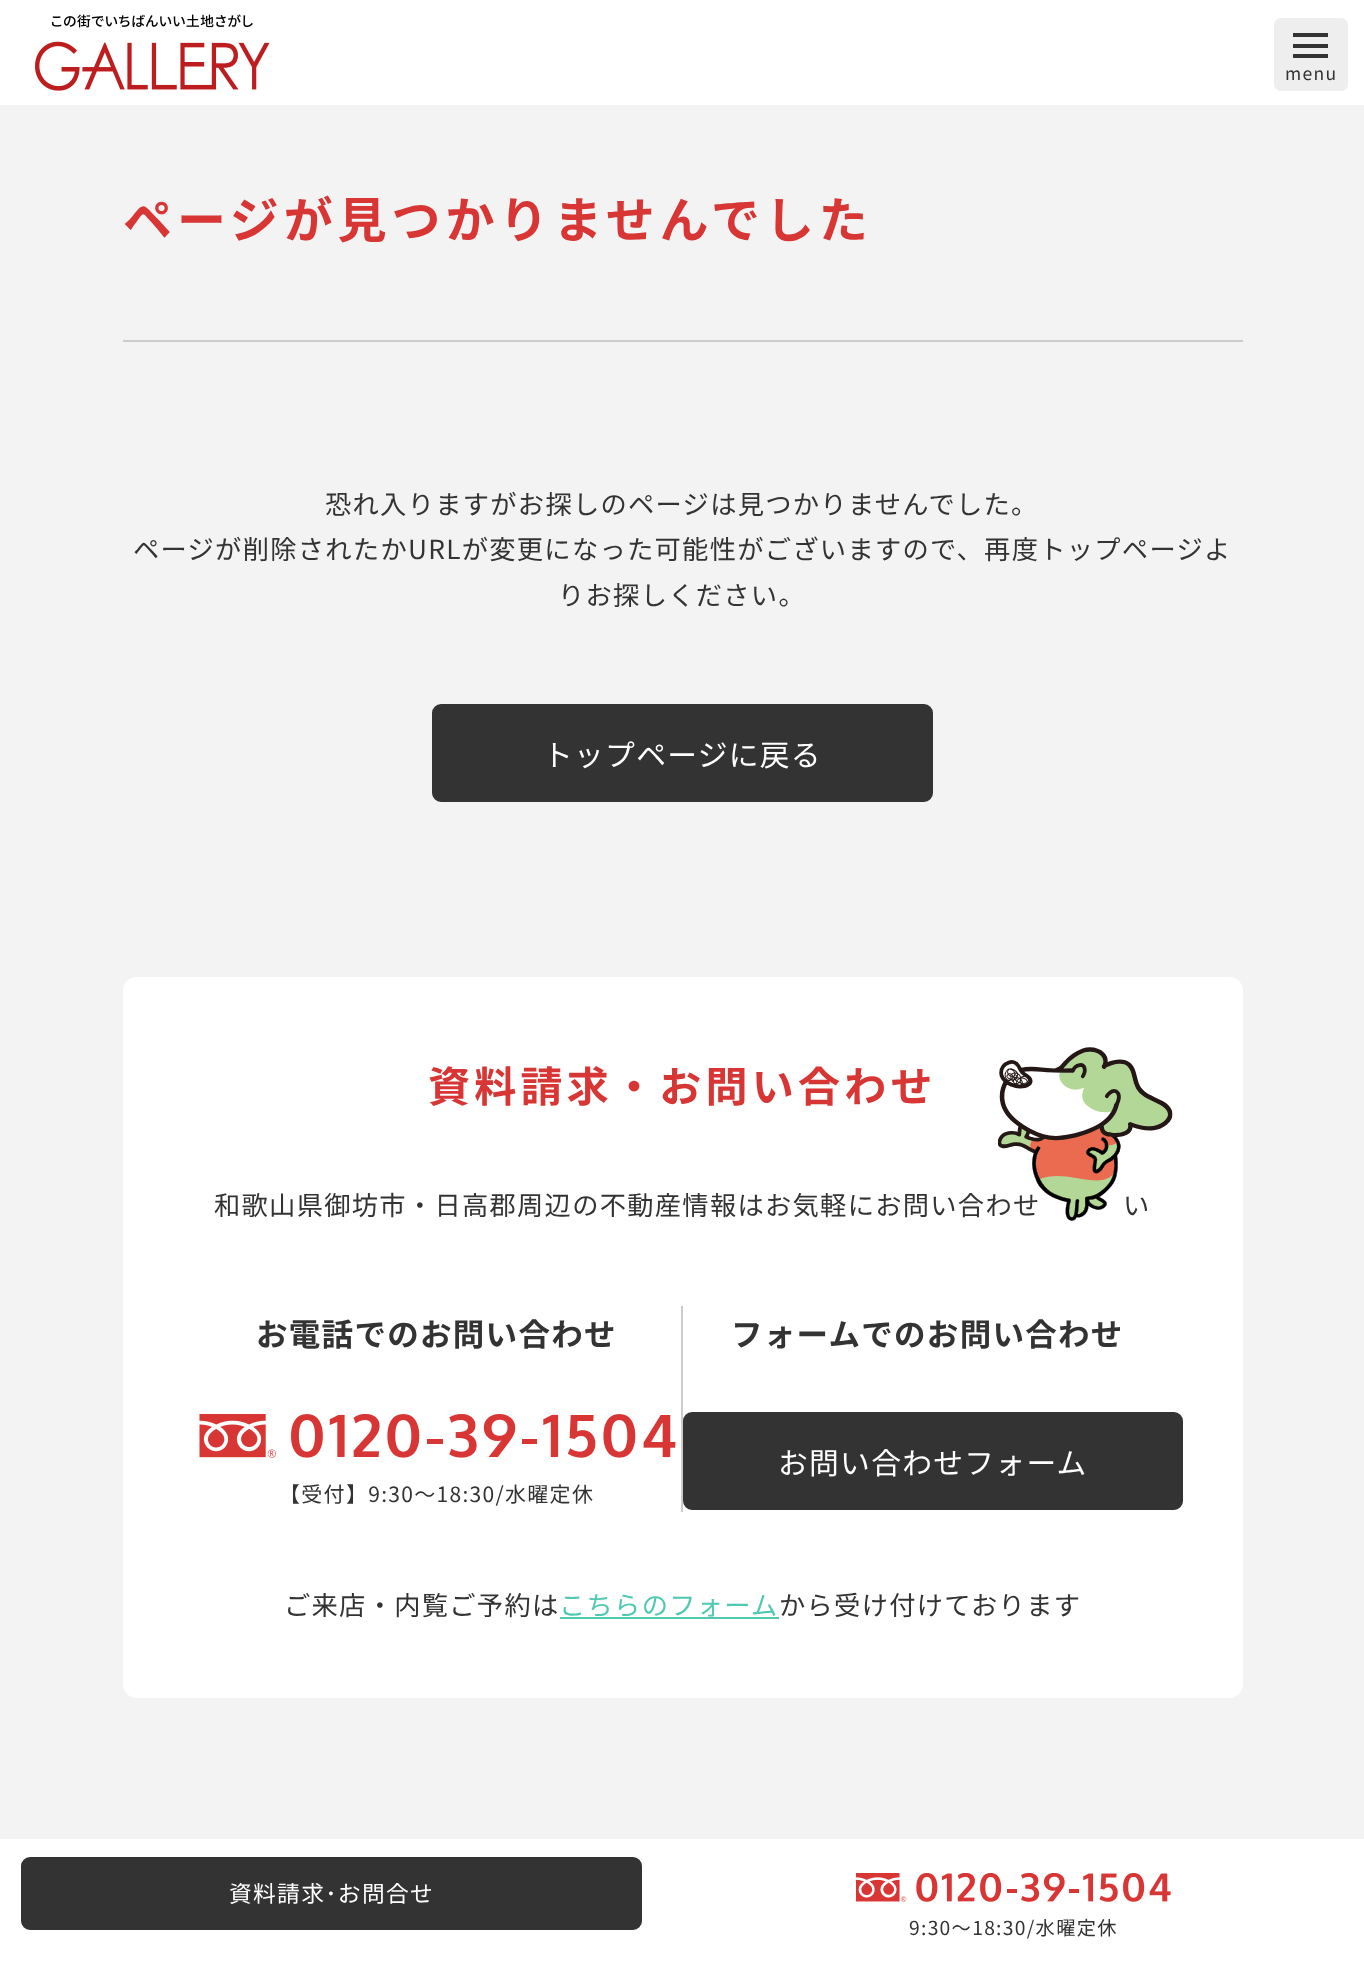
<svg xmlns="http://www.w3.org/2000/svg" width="1364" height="1961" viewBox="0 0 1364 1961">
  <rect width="100%" height="100%" fill="#f3f3f3"/>
  <rect x="0" y="0" width="1364" height="105" fill="#ffffff"/>
  <image x="35" y="14" width="235" height="77" href="img1.png"/>
  <rect x="1274" y="18" width="74" height="73" rx="7" fill="#eeeeee"/>
  <rect x="1293" y="44" width="35" height="4" fill="#333333"/>
  <rect x="1293" y="33" width="35" height="4" fill="#333333"/>
  <rect x="1293" y="54" width="35" height="4" fill="#333333"/>
  <text x="1285" y="80" font-family="Noto Sans JP" font-size="17.5" letter-spacing="1.3" fill="#333333">menu</text>
  <rect x="123" y="340" width="1120" height="2" fill="#cccccc"/>
  <text x="123" y="238" font-family="Noto Sans JP" font-size="49" font-weight="bold" letter-spacing="4.9" fill="#d83535">ページが見つかりませんでした</text>
  <text x="325" y="514" font-family="Noto Sans JP" font-size="26.25" letter-spacing="1.3" fill="#333333">恐れ入りますがお探しのページは見つかりませんでした。</text>
  <text x="133" y="559" font-family="Noto Sans JP" font-size="26.25" letter-spacing="1.3" fill="#333333">ページが削除されたかURLが変更になった可能性がございますので、再度トップページよ</text>
  <text x="558" y="605" font-family="Noto Sans JP" font-size="26.25" letter-spacing="1.3" fill="#333333">りお探しください。</text>
  <rect x="434" y="706" width="497" height="94" rx="7" fill="#333333" stroke="#333333" stroke-width="4"/>
  <text x="543" y="766" font-family="Noto Sans JP" font-size="29.75" letter-spacing="1.3" fill="#ffffff">トップページに戻る</text>
  <rect x="123" y="977" width="1120" height="721" rx="14" fill="#ffffff"/>
  <text x="428" y="1102" font-family="Noto Sans JP" font-size="42" font-weight="bold" letter-spacing="4.25" fill="#d83535">資料請求・お問い合わせ</text>
  <text x="214" y="1215" font-family="Noto Sans JP" font-size="26.25" letter-spacing="1.3" fill="#333333">和歌山県御坊市・日高郡周辺の不動産情報はお気軽にお問い合わせ</text>
  <text x="1123" y="1215" font-family="Noto Sans JP" font-size="26.25" letter-spacing="1.3" fill="#333333">い</text>
  <image x="998" y="1047" width="175" height="174" href="img2.png"/>
  <rect x="681" y="1306" width="2" height="206" fill="#cccccc"/>
  <text x="256" y="1346" font-family="Noto Sans JP" font-size="31.5" font-weight="bold" letter-spacing="1.3" fill="#333333">お電話でのお問い合わせ</text>
  <image x="199" y="1414" width="477" height="44" href="img3.png"/>
  <text x="279" y="1502" font-family="Noto Sans JP" font-size="21" letter-spacing="1.3" fill="#333333">【受付】9:30～18:30/水曜定休</text>
  <text x="731" y="1346" font-family="Noto Sans JP" font-size="31.5" font-weight="bold" letter-spacing="1.3" fill="#333333">フォームでのお問い合わせ</text>
  <rect x="685" y="1414" width="496" height="94" rx="7" fill="#333333" stroke="#333333" stroke-width="4"/>
  <text x="778" y="1474" font-family="Noto Sans JP" font-size="29.75" letter-spacing="1.3" fill="#ffffff">お問い合わせフォーム</text>
  <text x="284" y="1615" font-family="Noto Sans JP" font-size="26.25" letter-spacing="1.3" fill="#333333">ご来店・内覧ご予約は</text>
  <text x="559" y="1615" font-family="Noto Sans JP" font-size="26.25" letter-spacing="1.3" fill="#4fc9b1">こちらのフォーム</text>
  <rect x="560" y="1617" width="219" height="2" fill="#4fc9b1"/>
  <text x="779" y="1615" font-family="Noto Sans JP" font-size="26.25" letter-spacing="1.3" fill="#333333">から受け付けております</text>
  <rect x="0" y="1839" width="1364" height="122" fill="#ffffff"/>
  <rect x="23" y="1859" width="617" height="69" rx="7" fill="#333333" stroke="#333333" stroke-width="4"/>
  <text x="229" y="1902" font-family="Noto Sans JP" font-size="22.75" letter-spacing="1.3" fill="#ffffff">資料請求･お問合せ</text>
  <image x="856" y="1873" width="315" height="29" href="img4.png"/>
  <text x="909" y="1935" font-family="Noto Sans JP" font-size="19.25" letter-spacing="1.3" fill="#333333">9:30〜18:30/水曜定休</text>
</svg>
